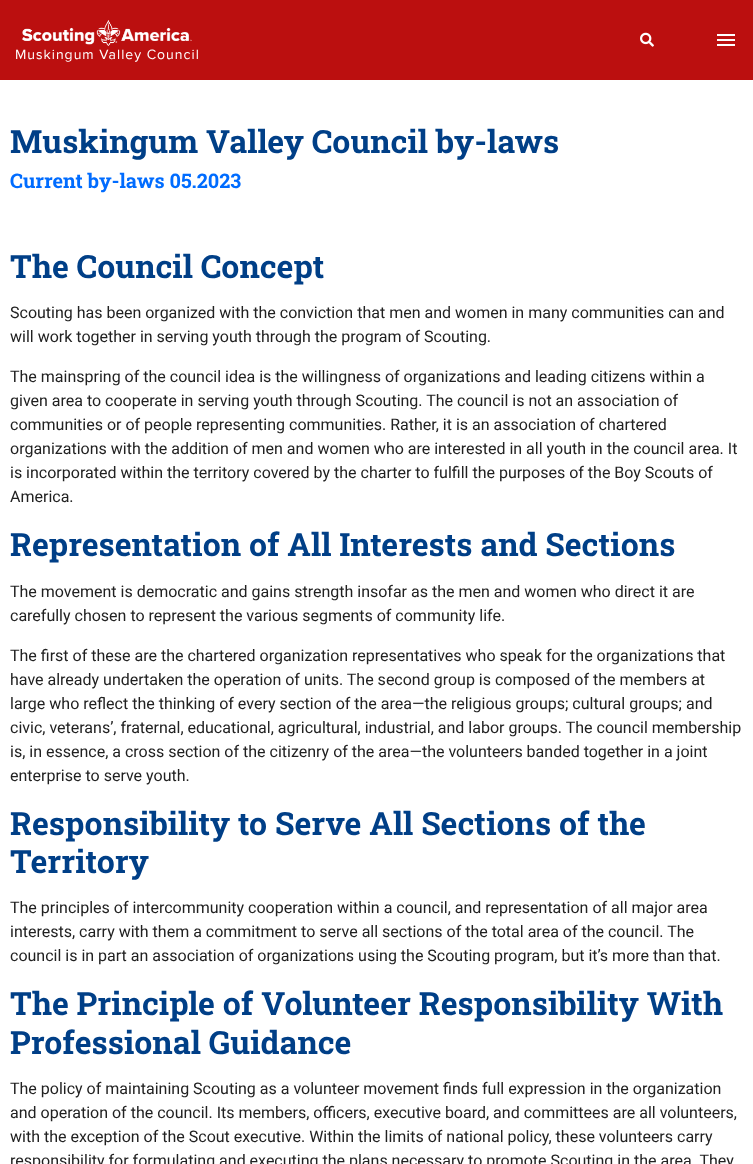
<svg xmlns="http://www.w3.org/2000/svg" width="753" height="1164" viewBox="0 0 753 1164">
  <rect width="100%" height="100%" fill="#ffffff"/>
  <rect x="0" y="0" width="753" height="80" fill="#bb0f0f"/>
  <image x="640" y="32" width="14" height="15" href="img1.png"/>
  <image x="717" y="34" width="18" height="12" href="img2.png"/>
  <image x="22" y="20" width="170" height="26" href="img3.png"/>
  <text x="15" y="59" font-family="Proxima Nova" font-size="14" letter-spacing="1" fill="#ffffff">Muskingum Valley Council</text>
  <text x="10" y="153" font-family="Roboto Slab" font-size="32" font-weight="bold" fill="#003f87">Muskingum Valley Council by-laws</text>
  <text x="10" y="188" font-family="Roboto Slab" font-size="20" font-weight="bold" fill="#006cff">Current by-laws 05.2023</text>
  <text x="10" y="278" font-family="Roboto Slab" font-size="32" font-weight="bold" fill="#003f87">The Council Concept</text>
  <text x="10" y="318" font-family="Roboto" font-size="16" fill="#212121">Scouting has been organized with the conviction that men and women in many communities can and</text>
  <text x="10" y="342" font-family="Roboto" font-size="16" fill="#212121">will work together in serving youth through the program of Scouting.</text>
  <text x="10" y="382" font-family="Roboto" font-size="16" fill="#212121">The mainspring of the council idea is the willingness of organizations and leading citizens within a</text>
  <text x="10" y="406" font-family="Roboto" font-size="16" fill="#212121">given area to cooperate in serving youth through Scouting. The council is not an association of</text>
  <text x="10" y="430" font-family="Roboto" font-size="16" fill="#212121">communities or of people representing communities. Rather, it is an association of chartered</text>
  <text x="10" y="454" font-family="Roboto" font-size="16" fill="#212121">organizations with the addition of men and women who are interested in all youth in the council area. It</text>
  <text x="10" y="478" font-family="Roboto" font-size="16" fill="#212121">is incorporated within the territory covered by the charter to fulfill the purposes of the Boy Scouts of</text>
  <text x="10" y="502" font-family="Roboto" font-size="16" fill="#212121">America.</text>
  <text x="10" y="556" font-family="Roboto Slab" font-size="32" font-weight="bold" fill="#003f87">Representation of All Interests and Sections</text>
  <text x="10" y="597" font-family="Roboto" font-size="16" fill="#212121">The movement is democratic and gains strength insofar as the men and women who direct it are</text>
  <text x="10" y="621" font-family="Roboto" font-size="16" fill="#212121">carefully chosen to represent the various segments of community life.</text>
  <text x="10" y="661" font-family="Roboto" font-size="16" fill="#212121">The first of these are the chartered organization representatives who speak for the organizations that</text>
  <text x="10" y="685" font-family="Roboto" font-size="16" fill="#212121">have already undertaken the operation of units. The second group is composed of the members at</text>
  <text x="10" y="709" font-family="Roboto" font-size="16" fill="#212121">large who reflect the thinking of every section of the area—the religious groups; cultural groups; and</text>
  <text x="10" y="733" font-family="Roboto" font-size="16" fill="#212121">civic, veterans’, fraternal, educational, agricultural, industrial, and labor groups. The council membership</text>
  <text x="10" y="757" font-family="Roboto" font-size="16" fill="#212121">is, in essence, a cross section of the citizenry of the area—the volunteers banded together in a joint</text>
  <text x="10" y="781" font-family="Roboto" font-size="16" fill="#212121">enterprise to serve youth.</text>
  <text x="10" y="835" font-family="Roboto Slab" font-size="32" font-weight="bold" fill="#003f87">Responsibility to Serve All Sections of the</text>
  <text x="10" y="873" font-family="Roboto Slab" font-size="32" font-weight="bold" fill="#003f87">Territory</text>
  <text x="10" y="913" font-family="Roboto" font-size="16" fill="#212121">The principles of intercommunity cooperation within a council, and representation of all major area</text>
  <text x="10" y="937" font-family="Roboto" font-size="16" fill="#212121">interests, carry with them a commitment to serve all sections of the total area of the council. The</text>
  <text x="10" y="961" font-family="Roboto" font-size="16" fill="#212121">council is in part an association of organizations using the Scouting program, but it’s more than that.</text>
  <text x="10" y="1015" font-family="Roboto Slab" font-size="32" font-weight="bold" fill="#003f87">The Principle of Volunteer Responsibility With</text>
  <text x="10" y="1054" font-family="Roboto Slab" font-size="32" font-weight="bold" fill="#003f87">Professional Guidance</text>
  <text x="10" y="1094" font-family="Roboto" font-size="16" fill="#212121">The policy of maintaining Scouting as a volunteer movement finds full expression in the organization</text>
  <text x="10" y="1118" font-family="Roboto" font-size="16" fill="#212121">and operation of the council. Its members, officers, executive board, and committees are all volunteers,</text>
  <text x="10" y="1142" font-family="Roboto" font-size="16" fill="#212121">with the exception of the Scout executive. Within the limits of national policy, these volunteers carry</text>
  <text x="10" y="1166" font-family="Roboto" font-size="16" fill="#212121">responsibility for formulating and executing the plans necessary to promote Scouting in the area. They</text>
</svg>
